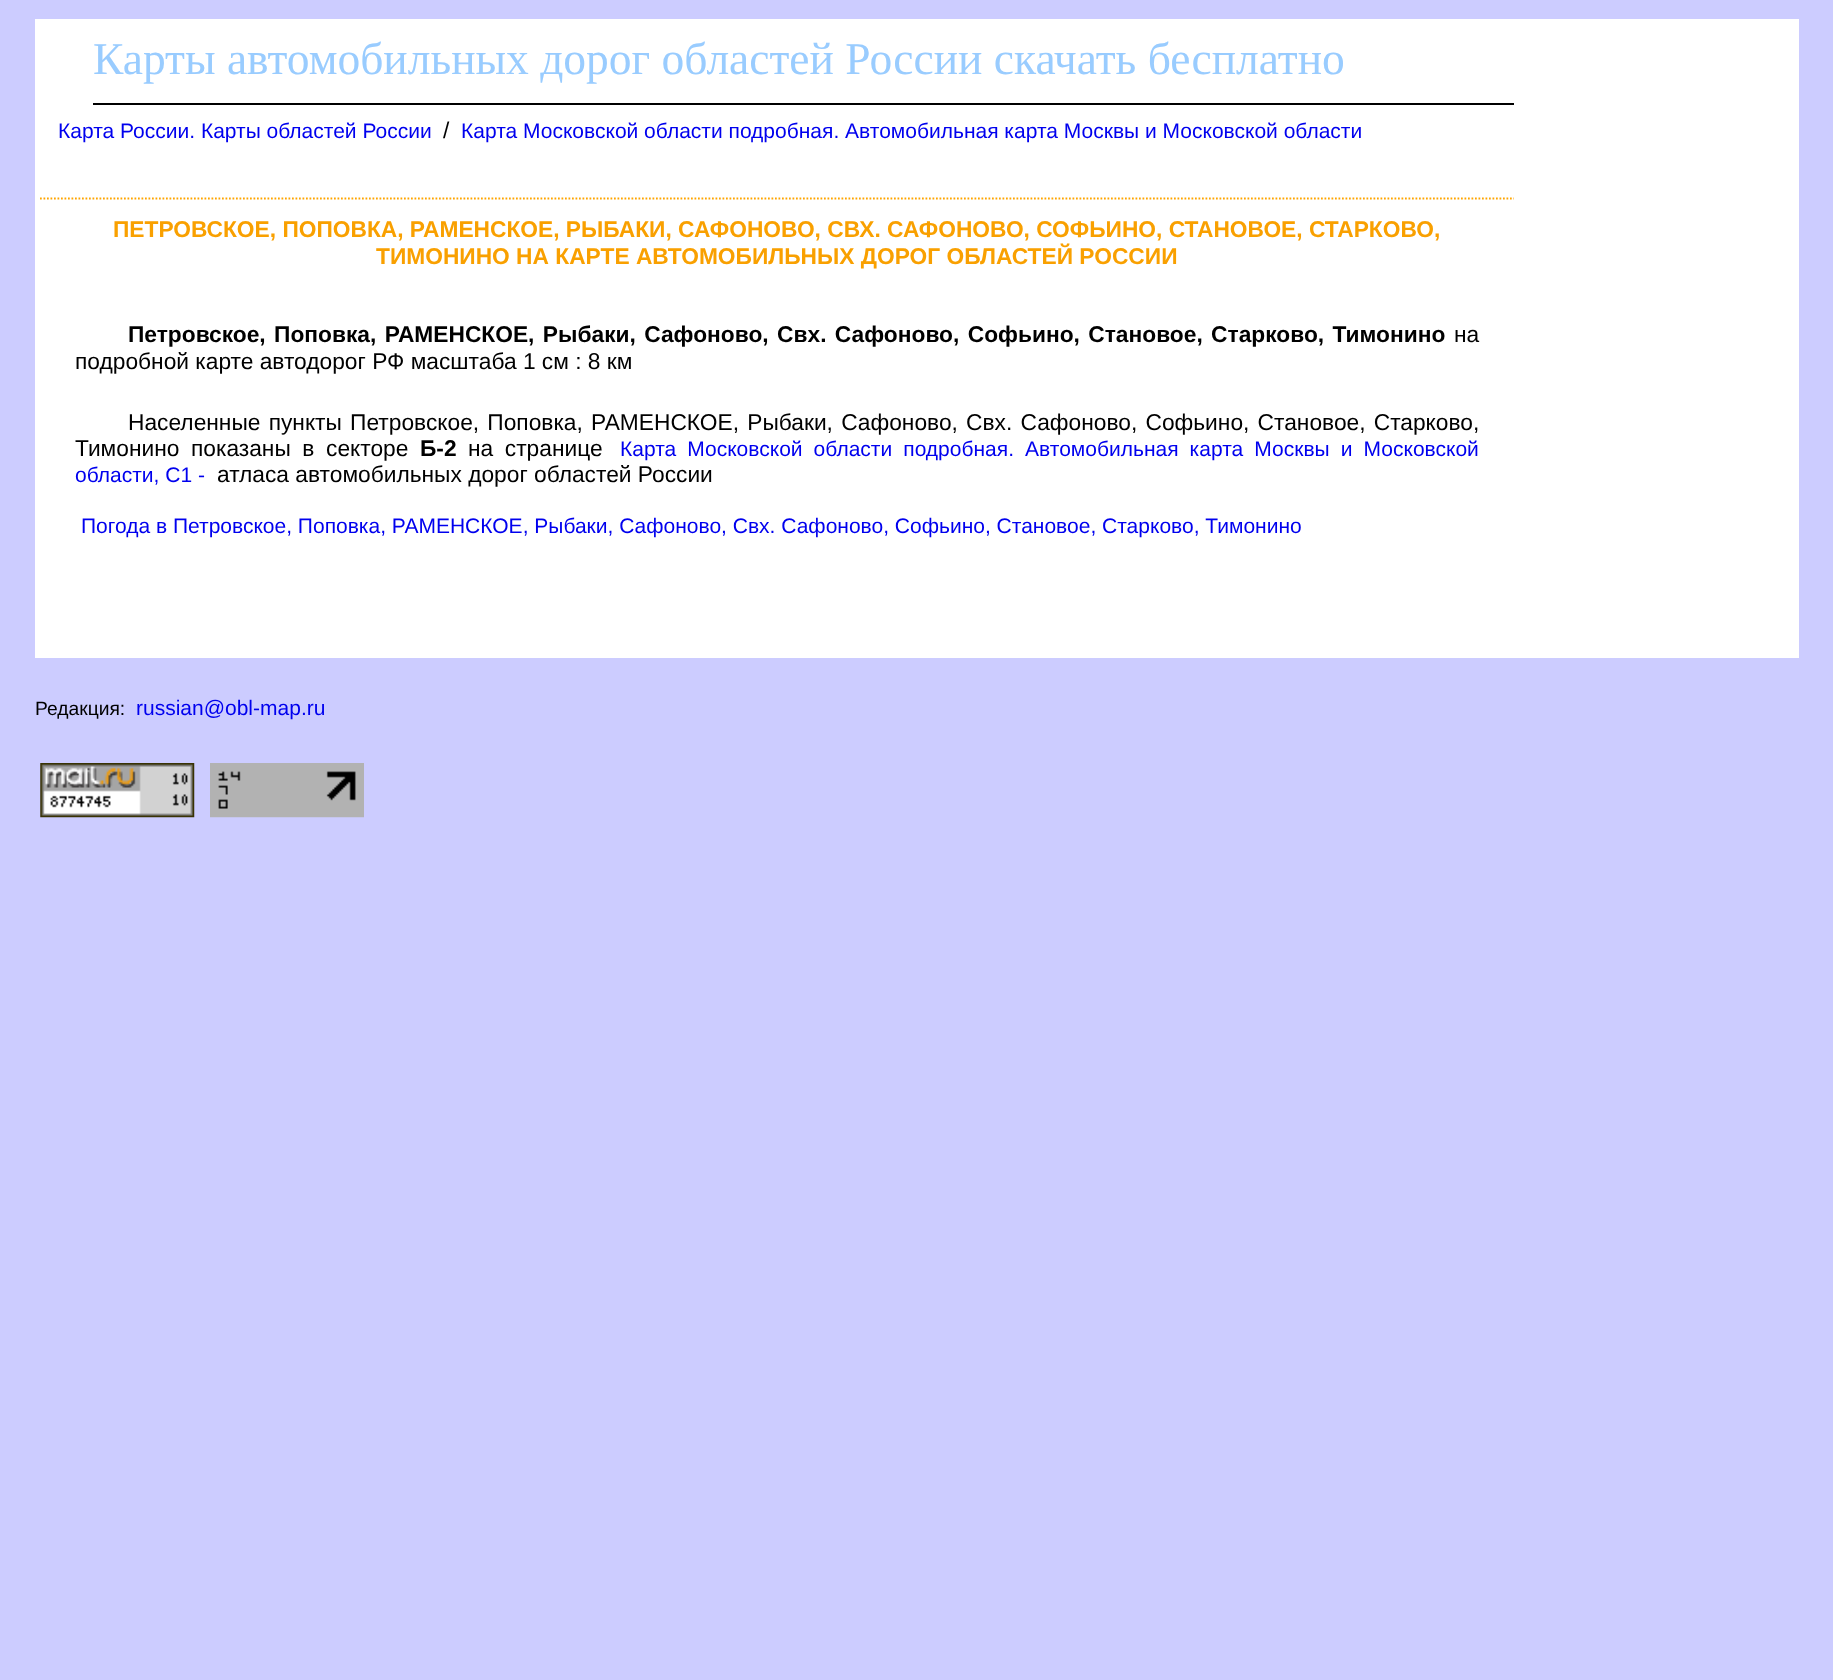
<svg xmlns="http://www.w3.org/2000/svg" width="1833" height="1680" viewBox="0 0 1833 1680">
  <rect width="100%" height="100%" fill="#ccccff"/>
  <rect x="35" y="19" width="1764" height="639" fill="#ffffff"/>
  <rect x="93" y="103" width="1421" height="2" fill="#000000"/>
  <text x="93" y="74" font-family="Liberation Serif" font-size="45.5" fill="#99ccff">Карты автомобильных дорог областей России скачать бесплатно</text>
  <text x="58" y="138" font-family="Liberation Sans" font-size="21" fill="#0000ee">Карта России. Карты областей России</text>
  <text x="443" y="138" font-family="Liberation Sans" font-size="22.75" fill="#000000">/</text>
  <text x="461" y="138" font-family="Liberation Sans" font-size="21" fill="#0000ee">Карта Московской области подробная. Автомобильная карта Москвы и Московской области</text>
  <path d="M40 198.5H1514" fill="none" stroke="#ffa500" stroke-width="1.8" stroke-dasharray="1.75 1.75"/>
  <text x="113" y="237" font-family="Liberation Sans" font-size="22.75" font-weight="bold" fill="#f9a000">ПЕТРОВСКОЕ, ПОПОВКА, РАМЕНСКОЕ, РЫБАКИ, САФОНОВО, СВХ. САФОНОВО, СОФЬИНО, СТАНОВОЕ, СТАРКОВО,</text>
  <text x="376" y="264" font-family="Liberation Sans" font-size="22.75" font-weight="bold" fill="#f9a000">ТИМОНИНО НА КАРТЕ АВТОМОБИЛЬНЫХ ДОРОГ ОБЛАСТЕЙ РОССИИ</text>
  <text x="128" y="342" word-spacing="2.1" font-family="Liberation Sans" font-size="22.75" font-weight="bold" fill="#000000">Петровское, Поповка, РАМЕНСКОЕ, Рыбаки, Сафоново, Свх. Сафоново, Софьино, Становое, Старково, Тимонино</text>
  <text x="1454" y="342" font-family="Liberation Sans" font-size="22.75" fill="#000000">на</text>
  <text x="75" y="369" font-family="Liberation Sans" font-size="22.75" fill="#000000">подробной карте автодорог РФ масштаба 1 см : 8 км</text>
  <text x="128" y="430" word-spacing="1.9" font-family="Liberation Sans" font-size="22.75" fill="#000000">Населенные пункты Петровское, Поповка, РАМЕНСКОЕ, Рыбаки, Сафоново, Свх. Сафоново, Софьино, Становое, Старково,</text>
  <text x="75" y="456" word-spacing="5.25" font-family="Liberation Sans" font-size="22.75" fill="#000000">Тимонино показаны в секторе</text>
  <text x="420" y="456" font-family="Liberation Sans" font-size="22.75" font-weight="bold" fill="#000000">Б-2</text>
  <text x="468" y="456" word-spacing="5.25" font-family="Liberation Sans" font-size="22.75" fill="#000000">на странице</text>
  <text x="620" y="456" word-spacing="5.25" font-family="Liberation Sans" font-size="21" fill="#0000ee">Карта Московской области подробная. Автомобильная карта Москвы и Московской</text>
  <text x="75" y="482" font-family="Liberation Sans" font-size="21" fill="#0000ee">области, C1 -</text>
  <text x="217" y="482" font-family="Liberation Sans" font-size="22.75" fill="#000000">атласа автомобильных дорог областей России</text>
  <text x="81" y="533" font-family="Liberation Sans" font-size="21" fill="#0000ee">Погода в Петровское, Поповка, РАМЕНСКОЕ, Рыбаки, Сафоново, Свх. Сафоново, Софьино, Становое, Старково, Тимонино</text>
  <text x="35" y="715" font-family="Liberation Sans" font-size="19.25" fill="#000000">Редакция:</text>
  <text x="136" y="715" font-family="Liberation Sans" font-size="21" fill="#0000ee">russian@obl-map.ru</text>
  <image x="40" y="763" width="155" height="55" href="img1.png"/>
  <image x="210" y="763" width="154" height="55" href="img2.png"/>
</svg>
